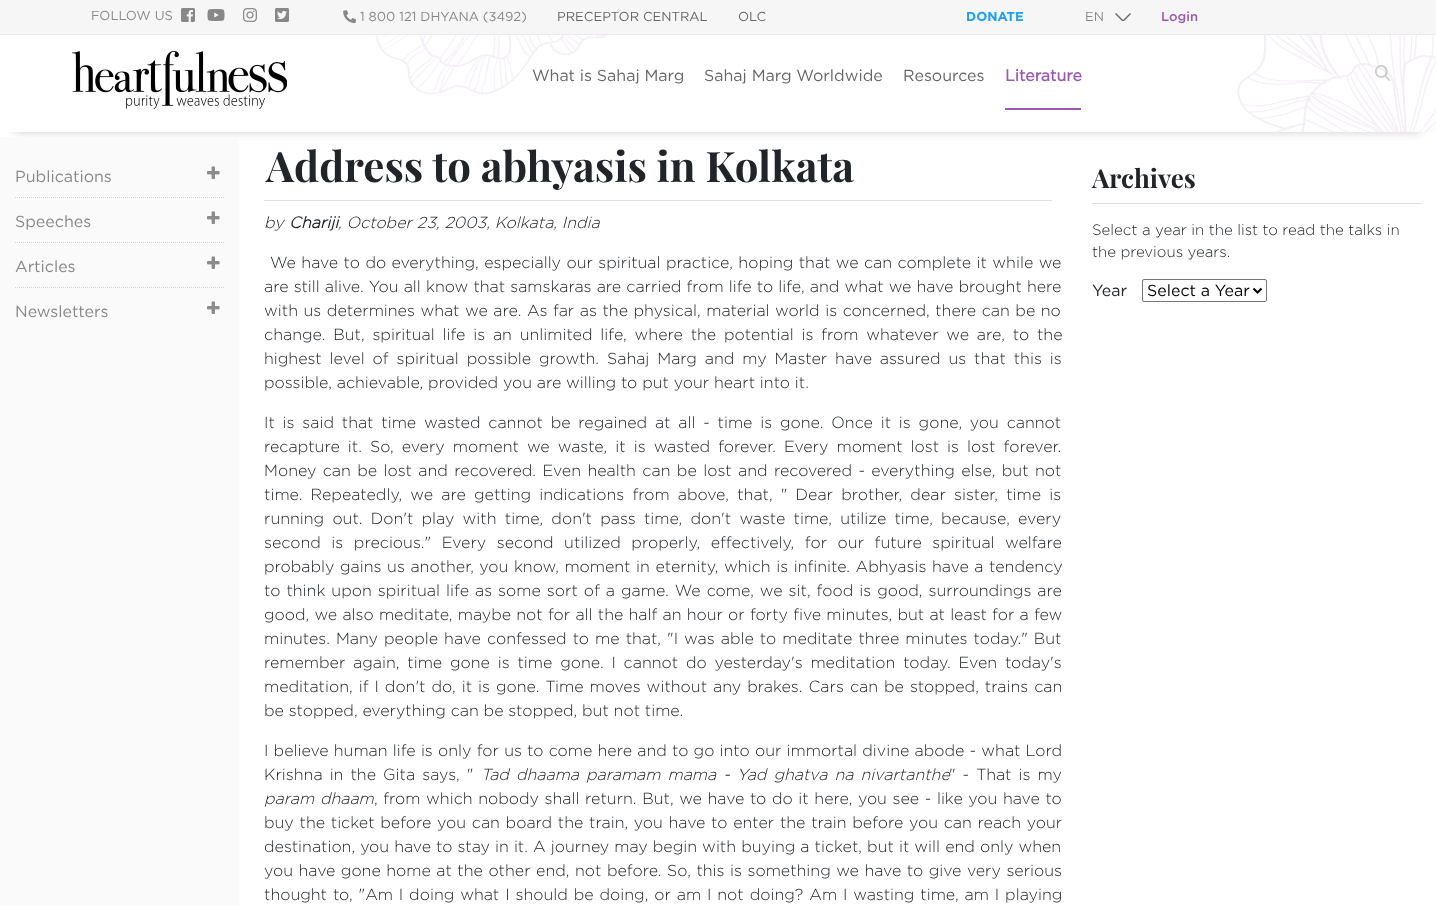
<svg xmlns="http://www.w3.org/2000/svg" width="1436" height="906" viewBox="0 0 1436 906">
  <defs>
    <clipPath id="clip1"><rect x="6" y="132" width="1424" height="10"/></clipPath>
    <filter id="blur1" x="-50%" y="-200%" width="200%" height="500%"><feGaussianBlur stdDeviation="5"/></filter>
  </defs>
  <rect width="100%" height="100%" fill="#ffffff"/>
  <rect x="0" y="0" width="1436" height="34" fill="#f6f6f6"/>
  <rect x="0" y="34" width="1436" height="1" fill="#ebebeb"/>
  <text x="91" y="20" font-family="Gotham" font-size="13" fill="#888888">FOLLOW US</text>
  <image x="181" y="8" width="14" height="14" href="img1.png"/>
  <image x="207" y="9" width="18" height="12" href="img2.png"/>
  <image x="243" y="8" width="14" height="14" href="img3.png"/>
  <image x="275" y="8" width="14" height="14" href="img4.png"/>
  <image x="343" y="10" width="13" height="14" href="img5.png"/>
  <text x="360" y="21" font-family="Gotham" font-size="13" fill="#888888">1 800 121 DHYANA (3492)</text>
  <text x="557" y="21" font-family="Gotham" font-size="13" fill="#666666">PRECEPTOR CENTRAL</text>
  <text x="738" y="21" font-family="Gotham" font-size="13" fill="#666666">OLC</text>
  <text x="966" y="21" font-family="Gotham" font-size="13" font-weight="bold" fill="#1ca0f2">DONATE</text>
  <image x="1115" y="13" width="16" height="8" href="img6.png"/>
  <text x="1085" y="21" font-family="Gotham" font-size="13" fill="#888888">EN</text>
  <text x="1161" y="21" font-family="Gotham" font-size="13" font-weight="500" fill="#9a59b5">Login</text>
  <g clip-path="url(#clip1)">
    <rect x="15" y="65" width="1406" height="67" fill="#cccccc" filter="url(#blur1)"/>
  </g>
  <image x="1237" y="35" width="199" height="97" href="img7.png"/>
  <image x="375" y="35" width="233" height="60" href="img8.png"/>
  <image x="72" y="51" width="215" height="58" href="img9.png"/>
  <text x="532" y="81" font-family="Gotham" font-size="16" fill="#666666">What is Sahaj Marg</text>
  <text x="704" y="81" font-family="Gotham" font-size="16" fill="#666666">Sahaj Marg Worldwide</text>
  <text x="903" y="81" font-family="Gotham" font-size="16" fill="#666666">Resources</text>
  <rect x="1005" y="108" width="76" height="2" fill="#9a59b5"/>
  <text x="1005" y="81" font-family="'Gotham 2'" font-size="16" font-weight="bold" fill="#9a59b5">Literature</text>
  <image x="1375" y="65" width="15" height="16" href="img10.png"/>
  <rect x="0" y="137" width="239" height="769" fill="#fafafa"/>
  <path d="M15 197.5H224" fill="none" stroke="#d4d3d3" stroke-dasharray="1 1"/>
  <text x="15" y="182" font-family="Gotham" font-size="16" fill="#888888">Publications</text>
  <image x="207" y="166" width="13" height="13" href="img11.png"/>
  <path d="M15 242.5H224" fill="none" stroke="#d4d3d3" stroke-dasharray="1 1"/>
  <text x="15" y="227" font-family="Gotham" font-size="16" fill="#888888">Speeches</text>
  <image x="207" y="211" width="13" height="13" href="img11.png"/>
  <path d="M15 287.5H224" fill="none" stroke="#d4d3d3" stroke-dasharray="1 1"/>
  <text x="15" y="272" font-family="Gotham" font-size="16" fill="#888888">Articles</text>
  <image x="207" y="256" width="13" height="13" href="img11.png"/>
  <text x="15" y="317" font-family="Gotham" font-size="16" fill="#888888">Newsletters</text>
  <image x="207" y="301" width="13" height="13" href="img11.png"/>
  <text x="266" y="182" font-family="Playfair Display" font-size="42" font-weight="bold" fill="#212529">Address to abhyasis in Kolkata</text>
  <rect x="264" y="200" width="788" height="1" fill="#dddddd"/>
  <text x="264" y="228" font-family="Gotham" font-size="16" font-weight="300" font-style="italic" fill="#212529">by</text>
  <text x="289" y="228" font-family="Gotham" font-size="16" font-weight="bold" font-style="italic" fill="#212529">Chariji</text>
  <text x="338" y="228" font-family="Gotham" font-size="16" font-weight="300" font-style="italic" fill="#212529">, October 23, 2003, Kolkata, India</text>
  <text x="270" y="268" word-spacing="0.6" font-family="Gotham" font-size="16" font-weight="300" fill="#212529">We have to do everything, especially our spiritual practice, hoping that we can complete it while we</text>
  <text x="264" y="292" word-spacing="0.3" font-family="Gotham" font-size="16" font-weight="300" fill="#212529">are still alive. You all know that samskaras are carried from life to life, and what we have brought here</text>
  <text x="264" y="316" word-spacing="0.75" font-family="Gotham" font-size="16" font-weight="300" fill="#212529">with us determines what we are. As far as the physical, material world is concerned, there can be no</text>
  <text x="264" y="340" word-spacing="3" font-family="Gotham" font-size="16" font-weight="300" fill="#212529">change. But, spiritual life is an unlimited life, where the potential is from whatever we are, to the</text>
  <text x="264" y="364" word-spacing="3.1" font-family="Gotham" font-size="16" font-weight="300" fill="#212529">highest level of spiritual possible growth. Sahaj Marg and my Master have assured us that this is</text>
  <text x="264" y="388" font-family="Gotham" font-size="16" font-weight="300" fill="#212529">possible, achievable, provided you are willing to put your heart into it.</text>
  <text x="264" y="428" word-spacing="3" font-family="Gotham" font-size="16" font-weight="300" fill="#212529">It is said that time wasted cannot be regained at all - time is gone. Once it is gone, you cannot</text>
  <text x="264" y="452" word-spacing="3.25" font-family="Gotham" font-size="16" font-weight="300" fill="#212529">recapture it. So, every moment we waste, it is wasted forever. Every moment lost is lost forever.</text>
  <text x="264" y="476" word-spacing="1.6" font-family="Gotham" font-size="16" font-weight="300" fill="#212529">Money can be lost and recovered. Even health can be lost and recovered - everything else, but not</text>
  <text x="264" y="500" word-spacing="3.4" font-family="Gotham" font-size="16" font-weight="300" fill="#212529">time. Repeatedly, we are getting indications from above, that, " Dear brother, dear sister, time is</text>
  <text x="264" y="524" word-spacing="3.4" font-family="Gotham" font-size="16" font-weight="300" fill="#212529">running out. Don't play with time, don't pass time, don't waste time, utilize time, because, every</text>
  <text x="264" y="548" word-spacing="5.75" font-family="Gotham" font-size="16" font-weight="300" fill="#212529">second is precious." Every second utilized properly, effectively, for our future spiritual welfare</text>
  <text x="264" y="572" word-spacing="0.75" font-family="Gotham" font-size="16" font-weight="300" fill="#212529">probably gains us another, you know, moment in eternity, which is infinite. Abhyasis have a tendency</text>
  <text x="264" y="596" word-spacing="1.2" font-family="Gotham" font-size="16" font-weight="300" fill="#212529">to think upon spiritual life as some sort of a game. We come, we sit, food is good, surroundings are</text>
  <text x="264" y="620" word-spacing="0.4" font-family="Gotham" font-size="16" font-weight="300" fill="#212529">good, we also meditate, maybe not for all the half an hour or forty five minutes, but at least for a few</text>
  <text x="264" y="644" word-spacing="1.25" font-family="Gotham" font-size="16" font-weight="300" fill="#212529">minutes. Many people have confessed to me that, "I was able to meditate three minutes today." But</text>
  <text x="264" y="668" word-spacing="3" font-family="Gotham" font-size="16" font-weight="300" fill="#212529">remember again, time gone is time gone. I cannot do yesterday's meditation today. Even today's</text>
  <text x="264" y="692" word-spacing="1.2" font-family="Gotham" font-size="16" font-weight="300" fill="#212529">meditation, if I don't do, it is gone. Time moves without any brakes. Cars can be stopped, trains can</text>
  <text x="264" y="716" font-family="Gotham" font-size="16" font-weight="300" fill="#212529">be stopped, everything can be stopped, but not time.</text>
  <text x="264" y="756" word-spacing="0.4" font-family="Gotham" font-size="16" font-weight="300" fill="#212529">I believe human life is only for us to come here and to go into our immortal divine abode - what Lord</text>
  <text x="264" y="780" word-spacing="2.25" font-family="Gotham" font-size="16" font-weight="300" fill="#212529">Krishna in the Gita says, "</text>
  <text x="481" y="780" word-spacing="2.25" font-family="Gotham" font-size="16" font-weight="300" font-style="italic" fill="#212529">Tad dhaama paramam mama - Yad ghatva na nivartanthe</text>
  <text x="949" y="780" word-spacing="2.25" font-family="Gotham" font-size="16" font-weight="300" fill="#212529">" - That is my</text>
  <text x="264" y="804" word-spacing="1" font-family="Gotham" font-size="16" font-weight="300" font-style="italic" fill="#212529">param dhaam</text>
  <text x="374" y="804" word-spacing="0.8" font-family="Gotham" font-size="16" font-weight="300" fill="#212529">, from which nobody shall return. But, we have to do it here, you see - like you have to</text>
  <text x="264" y="828" word-spacing="0.9" font-family="Gotham" font-size="16" font-weight="300" fill="#212529">buy the ticket before you can board the train, you have to enter the train before you can reach your</text>
  <text x="264" y="852" word-spacing="0.25" font-family="Gotham" font-size="16" font-weight="300" fill="#212529">destination, you have to stay in it. A journey may begin with buying a ticket, but it will end only when</text>
  <text x="264" y="876" word-spacing="0.7" font-family="Gotham" font-size="16" font-weight="300" fill="#212529">you have gone home at the other end, not before. So, this is something we have to give very serious</text>
  <text x="264" y="900" word-spacing="1.1" font-family="Gotham" font-size="16" font-weight="300" fill="#212529">thought to, "Am I doing what I should be doing, or am I not doing? Am I wasting time, am I playing</text>
  <rect x="1092" y="203" width="329" height="1" fill="#dddddd"/>
  <text x="1092" y="188" font-family="Playfair Display" font-size="26" font-weight="bold" fill="#212529">Archives</text>
  <text x="1092" y="235" font-family="Gotham" font-size="15" font-weight="300" fill="#212529">Select a year in the list to read the talks in</text>
  <text x="1092" y="257" font-family="Gotham" font-size="15" font-weight="300" fill="#212529">the previous years.</text>
  <text x="1092" y="296" font-family="Gotham" font-size="16" fill="#212529">Year</text>
  <rect x="1142.5" y="279.5" width="124" height="22" rx="1.5" fill="none" stroke="#767676"/>
  <path d="M1253.5 288.5L1257.5 292.5L1261.5 288.5" fill="none" stroke="#000000" stroke-width="2"/>
  <text x="1147" y="296" font-family="Gotham" font-size="16" fill="#000000">Select a Year</text>
</svg>
